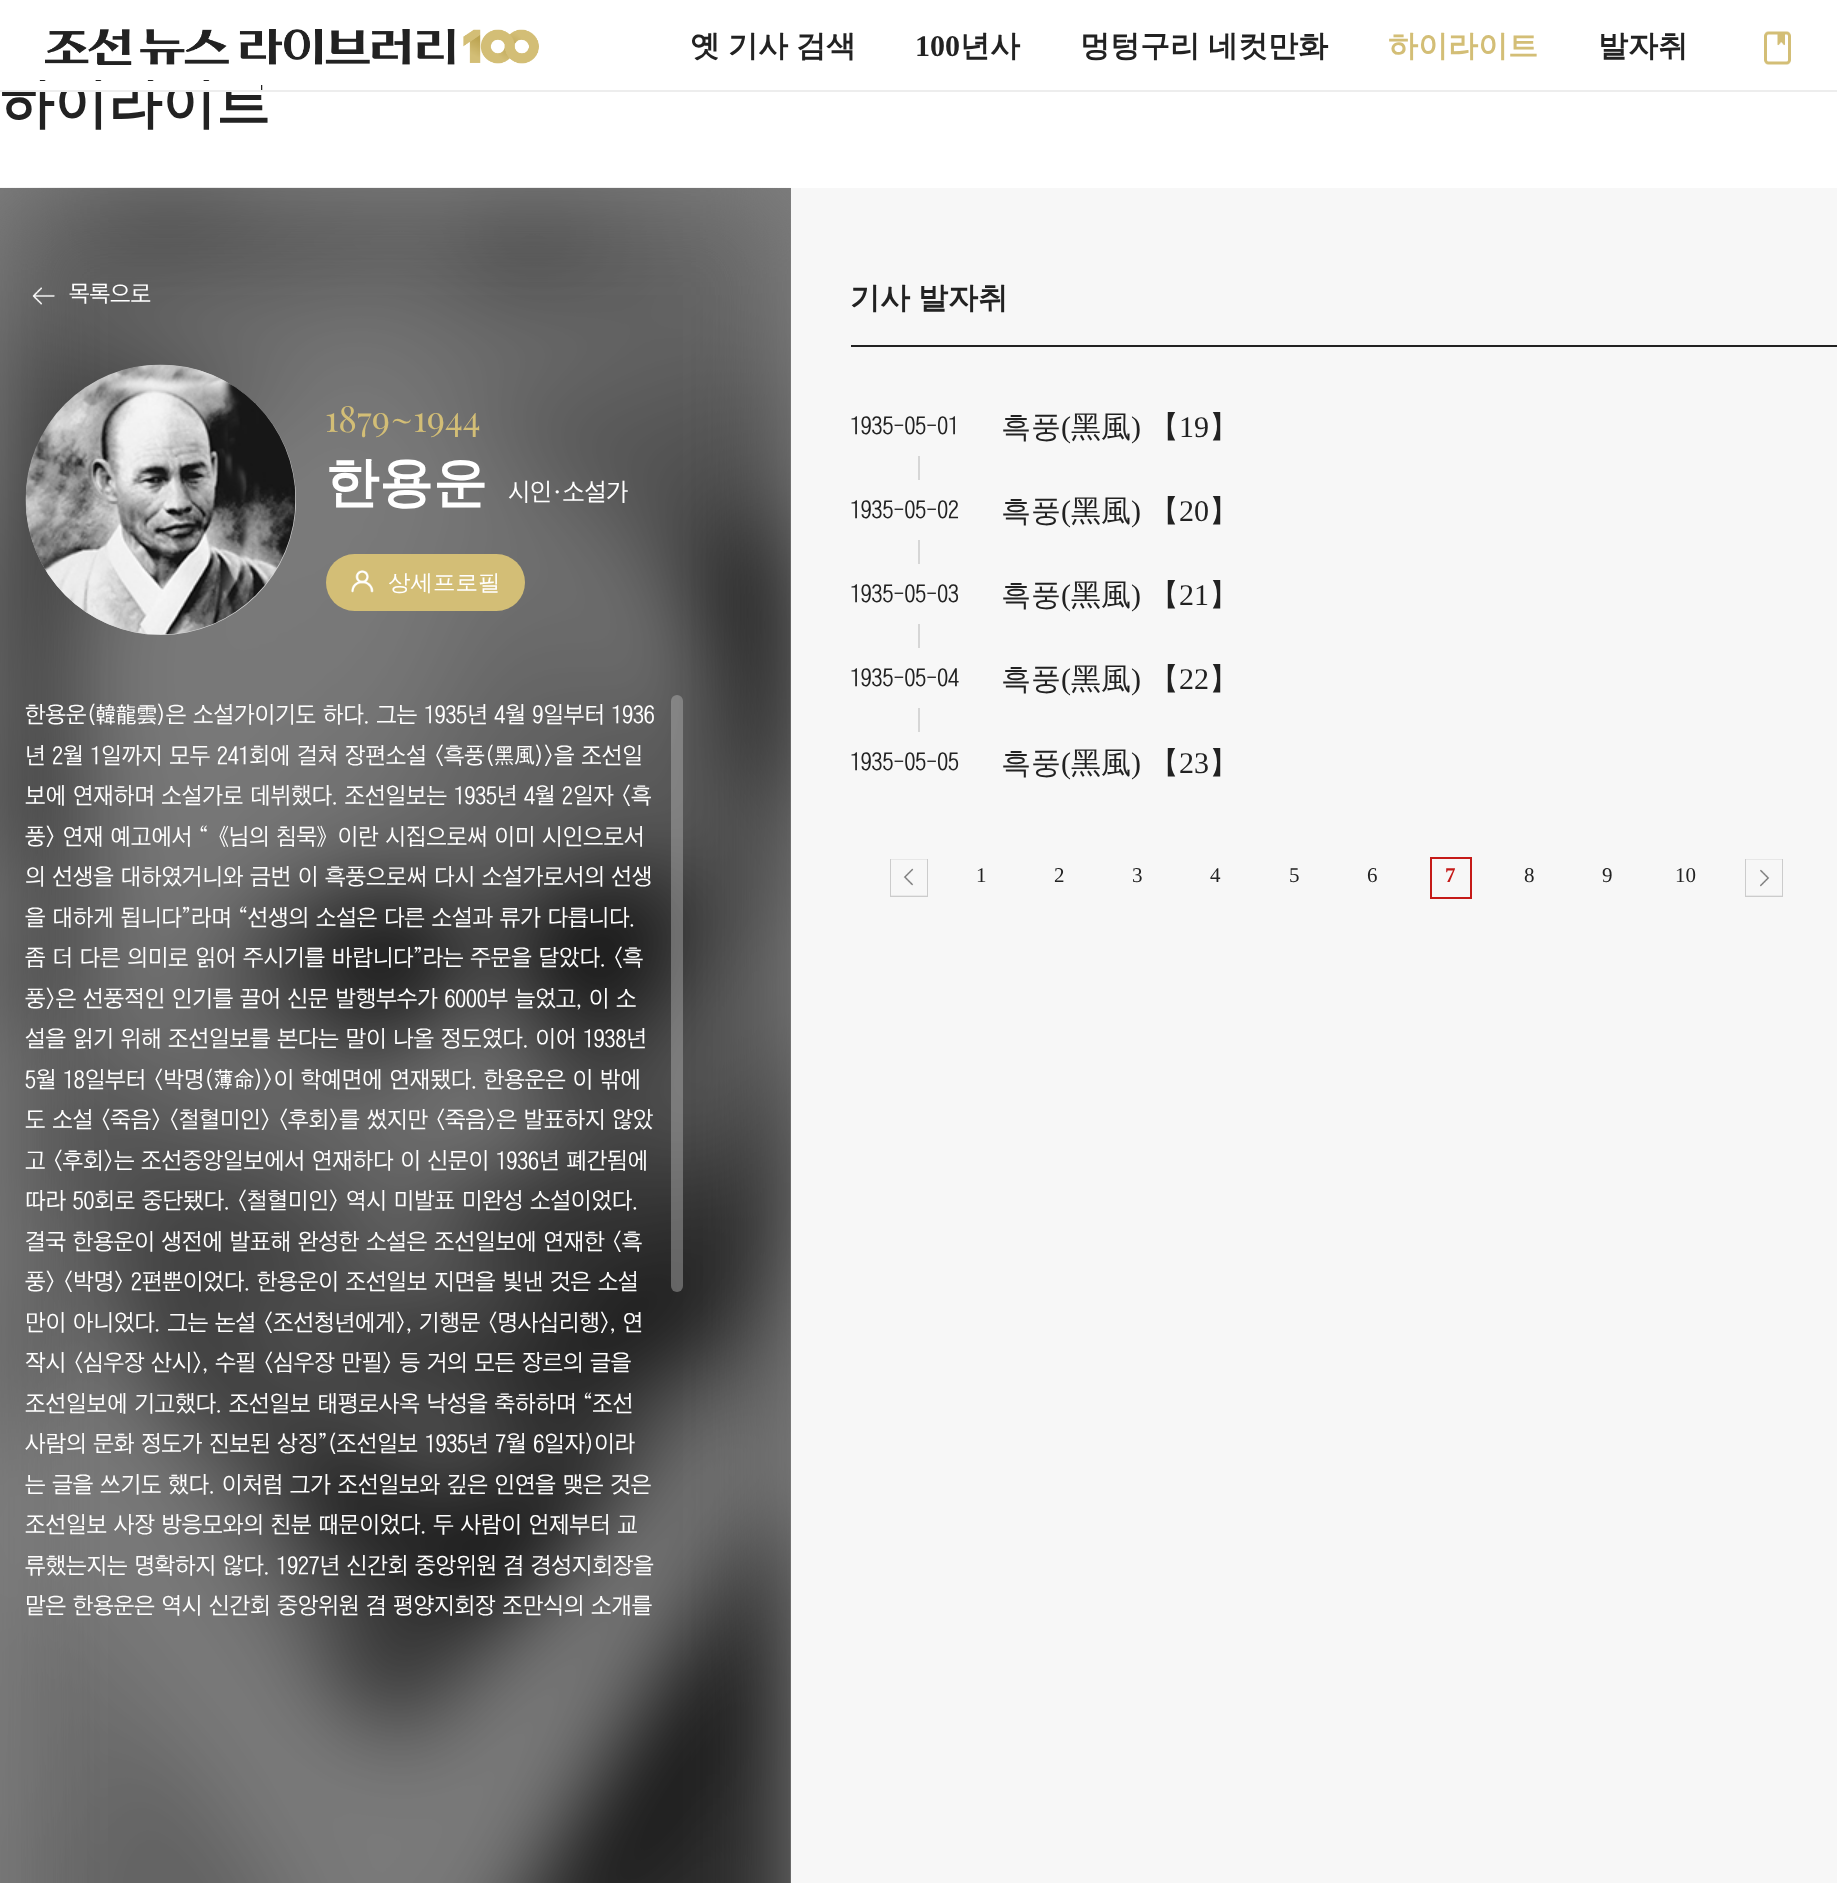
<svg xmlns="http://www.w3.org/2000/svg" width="1837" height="1883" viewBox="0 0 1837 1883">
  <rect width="100%" height="100%" fill="#ffffff"/>
  <rect x="0" y="188" width="791" height="1695" fill="#808080"/>
  <text x="0" y="122" font-family="WenQuanYi Zen Hei" font-size="54" font-weight="bold" fill="#222222">하이라이트</text>
  <rect x="9" y="81" width="252" height="9" fill="#ffffff"/>
  <rect x="0" y="90" width="1837" height="2" fill="#ededed"/>
  <image x="45" y="29" width="494" height="36" href="img1.png"/>
  <text x="690" y="56" word-spacing="-1" font-family="WenQuanYi Zen Hei" font-size="30" font-weight="bold" fill="#222222">옛 기사 검색</text>
  <text x="915" y="56" font-family="Liberation Serif" font-size="30" font-weight="bold" fill="#222222">100</text>
  <text x="960" y="56" font-family="WenQuanYi Zen Hei" font-size="30" font-weight="bold" fill="#222222">년사</text>
  <text x="1080" y="56" word-spacing="-1" font-family="WenQuanYi Zen Hei" font-size="30" font-weight="bold" fill="#222222">멍텅구리 네컷만화</text>
  <text x="1388" y="56" font-family="WenQuanYi Zen Hei" font-size="30" font-weight="bold" fill="#d3be76">하이라이트</text>
  <text x="1598" y="56" font-family="WenQuanYi Zen Hei" font-size="30" font-weight="bold" fill="#222222">발자취</text>
  <image x="1764" y="31" width="27" height="34" href="img2.png"/>
  <image x="0" y="187" width="791" height="1696" href="img3.png"/>
  <image x="32" y="287" width="23" height="18" href="img4.png"/>
  <text x="69" y="302" font-family="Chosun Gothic" font-size="22.5" fill="#ffffff">목록으로</text>
  <circle cx="161" cy="500" r="135" fill="#d6d6d6"/>
  <image x="25" y="364" width="271" height="271" href="img5.png"/>
  <text x="325" y="432" font-family="Playfair Display" font-size="36" fill="#d3be76">1879~1944</text>
  <text x="325" y="501" font-family="WenQuanYi Zen Hei" font-size="54" font-weight="bold" fill="#ffffff">한용운</text>
  <text x="508" y="501" font-family="Chosun Gothic" font-size="24" fill="#ffffff">시인·소설가</text>
  <rect x="326" y="554" width="199" height="57" rx="28.5" fill="#d3be76"/>
  <image x="351" y="570" width="23" height="23" href="img6.png"/>
  <text x="388" y="590" font-family="WenQuanYi Zen Hei" font-size="22.5" font-weight="500" fill="#ffffff">상세프로필</text>
  <text x="25" y="723" font-family="Chosun Gothic" font-size="22.5" fill="#ffffff">한용운(韓龍雲)은 소설가이기도 하다. 그는 1935년 4월 9일부터 1936</text>
  <text x="25" y="764" font-family="Chosun Gothic" font-size="22.5" fill="#ffffff">년 2월 1일까지 모두 241회에 걸쳐 장편소설 &lt;흑풍(黑風)&gt;을 조선일</text>
  <text x="25" y="804" font-family="Chosun Gothic" font-size="22.5" fill="#ffffff">보에 연재하며 소설가로 데뷔했다. 조선일보는 1935년 4월 2일자 &lt;흑</text>
  <text x="25" y="845" font-family="Chosun Gothic" font-size="22.5" fill="#ffffff">풍&gt; 연재 예고에서 “《님의 침묵》이란 시집으로써 이미 시인으로서</text>
  <text x="25" y="885" font-family="Chosun Gothic" font-size="22.5" fill="#ffffff">의 선생을 대하였거니와 금번 이 흑풍으로써 다시 소설가로서의 선생</text>
  <text x="25" y="926" font-family="Chosun Gothic" font-size="22.5" fill="#ffffff">을 대하게 됩니다”라며 “선생의 소설은 다른 소설과 류가 다릅니다.</text>
  <text x="25" y="966" font-family="Chosun Gothic" font-size="22.5" fill="#ffffff">좀 더 다른 의미로 읽어 주시기를 바랍니다”라는 주문을 달았다. &lt;흑</text>
  <text x="25" y="1007" font-family="Chosun Gothic" font-size="22.5" fill="#ffffff">풍&gt;은 선풍적인 인기를 끌어 신문 발행부수가 6000부 늘었고, 이 소</text>
  <text x="25" y="1047" font-family="Chosun Gothic" font-size="22.5" fill="#ffffff">설을 읽기 위해 조선일보를 본다는 말이 나올 정도였다. 이어 1938년</text>
  <text x="25" y="1088" font-family="Chosun Gothic" font-size="22.5" fill="#ffffff">5월 18일부터 &lt;박명(薄命)&gt;이 학예면에 연재됐다. 한용운은 이 밖에</text>
  <text x="25" y="1128" font-family="Chosun Gothic" font-size="22.5" fill="#ffffff">도 소설 &lt;죽음&gt; &lt;철혈미인&gt; &lt;후회&gt;를 썼지만 &lt;죽음&gt;은 발표하지 않았</text>
  <text x="25" y="1169" font-family="Chosun Gothic" font-size="22.5" fill="#ffffff">고 &lt;후회&gt;는 조선중앙일보에서 연재하다 이 신문이 1936년 폐간됨에</text>
  <text x="25" y="1209" font-family="Chosun Gothic" font-size="22.5" fill="#ffffff">따라 50회로 중단됐다. &lt;철혈미인&gt; 역시 미발표 미완성 소설이었다.</text>
  <text x="25" y="1250" font-family="Chosun Gothic" font-size="22.5" fill="#ffffff">결국 한용운이 생전에 발표해 완성한 소설은 조선일보에 연재한 &lt;흑</text>
  <text x="25" y="1290" font-family="Chosun Gothic" font-size="22.5" fill="#ffffff">풍&gt; &lt;박명&gt; 2편뿐이었다. 한용운이 조선일보 지면을 빛낸 것은 소설</text>
  <text x="25" y="1331" font-family="Chosun Gothic" font-size="22.5" fill="#ffffff">만이 아니었다. 그는 논설 &lt;조선청년에게&gt;, 기행문 &lt;명사십리행&gt;, 연</text>
  <text x="25" y="1371" font-family="Chosun Gothic" font-size="22.5" fill="#ffffff">작시 &lt;심우장 산시&gt;, 수필 &lt;심우장 만필&gt; 등 거의 모든 장르의 글을</text>
  <text x="25" y="1412" font-family="Chosun Gothic" font-size="22.5" fill="#ffffff">조선일보에 기고했다. 조선일보 태평로사옥 낙성을 축하하며 “조선</text>
  <text x="25" y="1452" font-family="Chosun Gothic" font-size="22.5" fill="#ffffff">사람의 문화 정도가 진보된 상징”(조선일보 1935년 7월 6일자)이라</text>
  <text x="25" y="1493" font-family="Chosun Gothic" font-size="22.5" fill="#ffffff">는 글을 쓰기도 했다. 이처럼 그가 조선일보와 깊은 인연을 맺은 것은</text>
  <text x="25" y="1533" font-family="Chosun Gothic" font-size="22.5" fill="#ffffff">조선일보 사장 방응모와의 친분 때문이었다. 두 사람이 언제부터 교</text>
  <text x="25" y="1574" font-family="Chosun Gothic" font-size="22.5" fill="#ffffff">류했는지는 명확하지 않다. 1927년 신간회 중앙위원 겸 경성지회장을</text>
  <text x="25" y="1614" font-family="Chosun Gothic" font-size="22.5" fill="#ffffff">맡은 한용운은 역시 신간회 중앙위원 겸 평양지회장 조만식의 소개를</text>
  <rect x="671" y="695" width="12" height="597" rx="6" fill="#c2c2c2" fill-opacity="0.4"/>
  <rect x="791" y="188" width="1046" height="1695" fill="#f7f7f7"/>
  <rect x="851" y="345" width="986" height="2" fill="#222222"/>
  <text x="850" y="308" word-spacing="-1" font-family="WenQuanYi Zen Hei" font-size="30" font-weight="bold" fill="#222222">기사 발자취</text>
  <text x="850" y="434" font-family="Chosun Gothic" font-size="22.5" fill="#222222">1935-05-01</text>
  <text x="1001" y="437" font-family="WenQuanYi Zen Hei" font-size="30" font-weight="500" fill="#222222">흑풍</text>
  <text x="1061" y="437" font-family="Liberation Serif" font-size="30" fill="#222222">(</text>
  <text x="1071" y="437" font-family="WenQuanYi Zen Hei" font-size="30" font-weight="500" fill="#222222">黑風</text>
  <text x="1131" y="437" font-family="Liberation Serif" font-size="30" fill="#222222">)</text>
  <text x="1149" y="437" font-family="WenQuanYi Zen Hei" font-size="30" font-weight="500" fill="#222222">【</text>
  <text x="1179" y="437" font-family="Liberation Serif" font-size="30" fill="#222222">19</text>
  <text x="1209" y="437" font-family="WenQuanYi Zen Hei" font-size="30" font-weight="500" fill="#222222">】</text>
  <rect x="918" y="456" width="2" height="276" fill="#d6d6d6"/>
  <rect x="918" y="480" width="2" height="60" fill="#f7f7f7"/>
  <text x="850" y="518" font-family="Chosun Gothic" font-size="22.5" fill="#222222">1935-05-02</text>
  <text x="1001" y="521" font-family="WenQuanYi Zen Hei" font-size="30" font-weight="500" fill="#222222">흑풍</text>
  <text x="1061" y="521" font-family="Liberation Serif" font-size="30" fill="#222222">(</text>
  <text x="1071" y="521" font-family="WenQuanYi Zen Hei" font-size="30" font-weight="500" fill="#222222">黑風</text>
  <text x="1131" y="521" font-family="Liberation Serif" font-size="30" fill="#222222">)</text>
  <text x="1149" y="521" font-family="WenQuanYi Zen Hei" font-size="30" font-weight="500" fill="#222222">【</text>
  <text x="1179" y="521" font-family="Liberation Serif" font-size="30" fill="#222222">20</text>
  <text x="1209" y="521" font-family="WenQuanYi Zen Hei" font-size="30" font-weight="500" fill="#222222">】</text>
  <rect x="918" y="564" width="2" height="60" fill="#f7f7f7"/>
  <text x="850" y="602" font-family="Chosun Gothic" font-size="22.5" fill="#222222">1935-05-03</text>
  <text x="1001" y="605" font-family="WenQuanYi Zen Hei" font-size="30" font-weight="500" fill="#222222">흑풍</text>
  <text x="1061" y="605" font-family="Liberation Serif" font-size="30" fill="#222222">(</text>
  <text x="1071" y="605" font-family="WenQuanYi Zen Hei" font-size="30" font-weight="500" fill="#222222">黑風</text>
  <text x="1131" y="605" font-family="Liberation Serif" font-size="30" fill="#222222">)</text>
  <text x="1149" y="605" font-family="WenQuanYi Zen Hei" font-size="30" font-weight="500" fill="#222222">【</text>
  <text x="1179" y="605" font-family="Liberation Serif" font-size="30" fill="#222222">21</text>
  <text x="1209" y="605" font-family="WenQuanYi Zen Hei" font-size="30" font-weight="500" fill="#222222">】</text>
  <rect x="918" y="648" width="2" height="60" fill="#f7f7f7"/>
  <text x="850" y="686" font-family="Chosun Gothic" font-size="22.5" fill="#222222">1935-05-04</text>
  <text x="1001" y="689" font-family="WenQuanYi Zen Hei" font-size="30" font-weight="500" fill="#222222">흑풍</text>
  <text x="1061" y="689" font-family="Liberation Serif" font-size="30" fill="#222222">(</text>
  <text x="1071" y="689" font-family="WenQuanYi Zen Hei" font-size="30" font-weight="500" fill="#222222">黑風</text>
  <text x="1131" y="689" font-family="Liberation Serif" font-size="30" fill="#222222">)</text>
  <text x="1149" y="689" font-family="WenQuanYi Zen Hei" font-size="30" font-weight="500" fill="#222222">【</text>
  <text x="1179" y="689" font-family="Liberation Serif" font-size="30" fill="#222222">22</text>
  <text x="1209" y="689" font-family="WenQuanYi Zen Hei" font-size="30" font-weight="500" fill="#222222">】</text>
  <text x="850" y="770" font-family="Chosun Gothic" font-size="22.5" fill="#222222">1935-05-05</text>
  <text x="1001" y="773" font-family="WenQuanYi Zen Hei" font-size="30" font-weight="500" fill="#222222">흑풍</text>
  <text x="1061" y="773" font-family="Liberation Serif" font-size="30" fill="#222222">(</text>
  <text x="1071" y="773" font-family="WenQuanYi Zen Hei" font-size="30" font-weight="500" fill="#222222">黑風</text>
  <text x="1131" y="773" font-family="Liberation Serif" font-size="30" fill="#222222">)</text>
  <text x="1149" y="773" font-family="WenQuanYi Zen Hei" font-size="30" font-weight="500" fill="#222222">【</text>
  <text x="1179" y="773" font-family="Liberation Serif" font-size="30" fill="#222222">23</text>
  <text x="1209" y="773" font-family="WenQuanYi Zen Hei" font-size="30" font-weight="500" fill="#222222">】</text>
  <image x="890" y="859" width="38" height="38" href="img7.png"/>
  <text x="976" y="882" font-family="Liberation Serif" font-size="21" fill="#222222">1</text>
  <text x="1054" y="882" font-family="Liberation Serif" font-size="21" fill="#222222">2</text>
  <text x="1132" y="882" font-family="Liberation Serif" font-size="21" fill="#222222">3</text>
  <text x="1210" y="882" font-family="Liberation Serif" font-size="21" fill="#222222">4</text>
  <text x="1289" y="882" font-family="Liberation Serif" font-size="21" fill="#222222">5</text>
  <text x="1367" y="882" font-family="Liberation Serif" font-size="21" fill="#222222">6</text>
  <rect x="1431" y="858" width="40" height="40" fill="none" stroke="#c51a18" stroke-width="2"/>
  <text x="1445" y="882" font-family="Liberation Serif" font-size="21" font-weight="bold" fill="#c51a18">7</text>
  <text x="1524" y="882" font-family="Liberation Serif" font-size="21" fill="#222222">8</text>
  <text x="1602" y="882" font-family="Liberation Serif" font-size="21" fill="#222222">9</text>
  <text x="1675" y="882" font-family="Liberation Serif" font-size="21" fill="#222222">10</text>
  <image x="1745" y="859" width="38" height="38" href="img8.png"/>
</svg>
